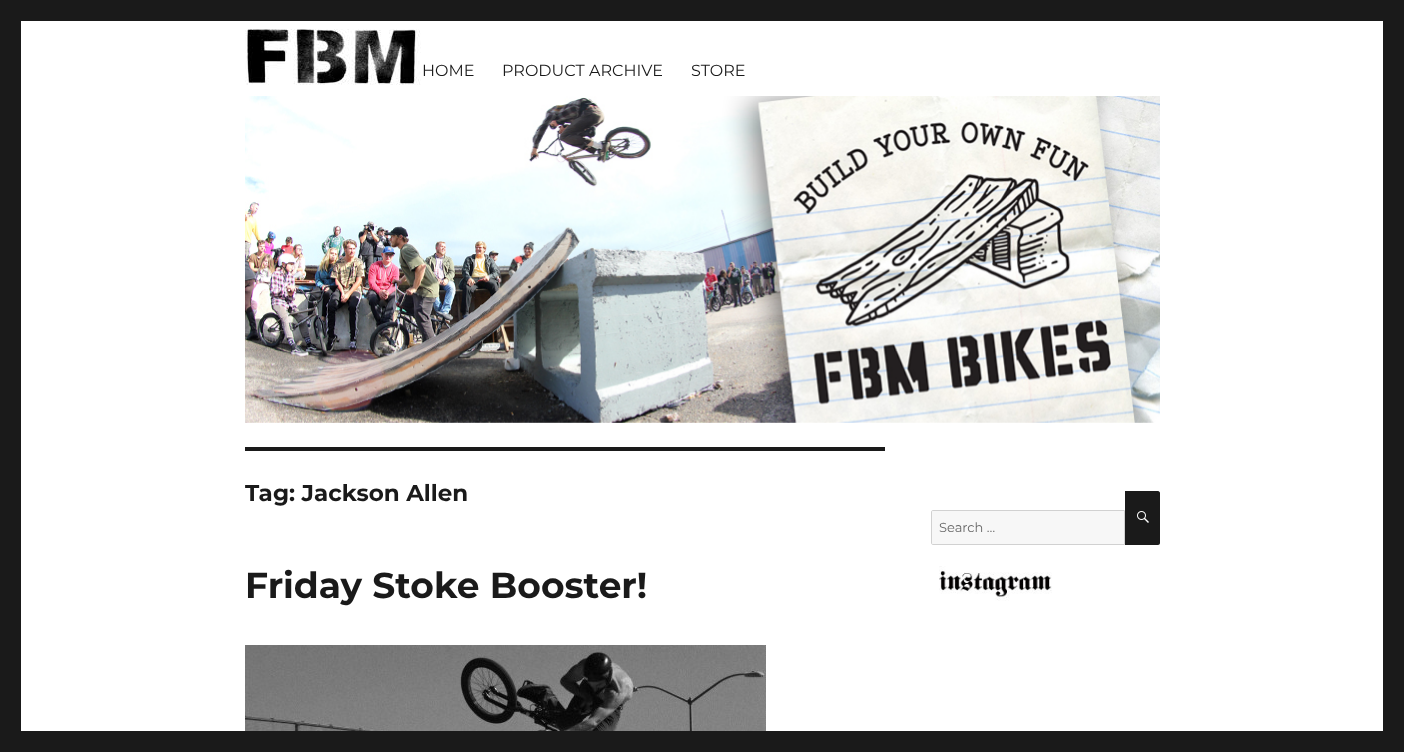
<svg xmlns="http://www.w3.org/2000/svg" width="1404" height="752" viewBox="0 0 1404 752">
  <rect width="100%" height="100%" fill="#1a1a1a"/>
  <rect x="21" y="21" width="1362" height="710" fill="#ffffff"/>
  <image x="245" y="29" width="176" height="56" href="img1.png"/>
  <text x="422" y="76" font-family="'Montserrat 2'" font-size="16" font-weight="100" fill="#1a1a1a">HOME</text>
  <text x="502" y="76" font-family="'Montserrat 2'" font-size="16" font-weight="100" fill="#1a1a1a">PRODUCT ARCHIVE</text>
  <text x="691" y="76" font-family="'Montserrat 2'" font-size="16" font-weight="100" fill="#1a1a1a">STORE</text>
  <image x="245" y="96" width="915" height="327" href="img2.png"/>
  <rect x="245" y="447" width="640" height="4" fill="#1a1a1a"/>
  <text x="245" y="501" font-family="Montserrat" font-size="23" font-weight="100" fill="#1a1a1a">Tag: Jackson Allen</text>
  <text x="245" y="598" font-family="Montserrat" font-size="36" font-weight="100" fill="#1a1a1a">Friday Stoke Booster!</text>
  <image x="245" y="645" width="521" height="86" href="img3.png"/>
  <path d="M933 510.5H1124.5V544.5H933C932 544.5 931.5 544 931.5 543V512C931.5 511 932 510.5 933 510.5Z" fill="#f7f7f7" stroke="#d1d1d1"/>
  <text x="939" y="532" font-family="'Montserrat 2'" font-size="13" font-weight="100" fill="#686868">Search …</text>
  <path d="M1125 491H1158C1159 491 1160 492 1160 493V543C1160 544 1159 545 1158 545H1125Z" fill="#1a1a1a"/>
  <image x="1137" y="511" width="12" height="12" href="img4.png"/>
  <image x="939" y="566" width="113" height="35" href="img5.png"/>
</svg>
